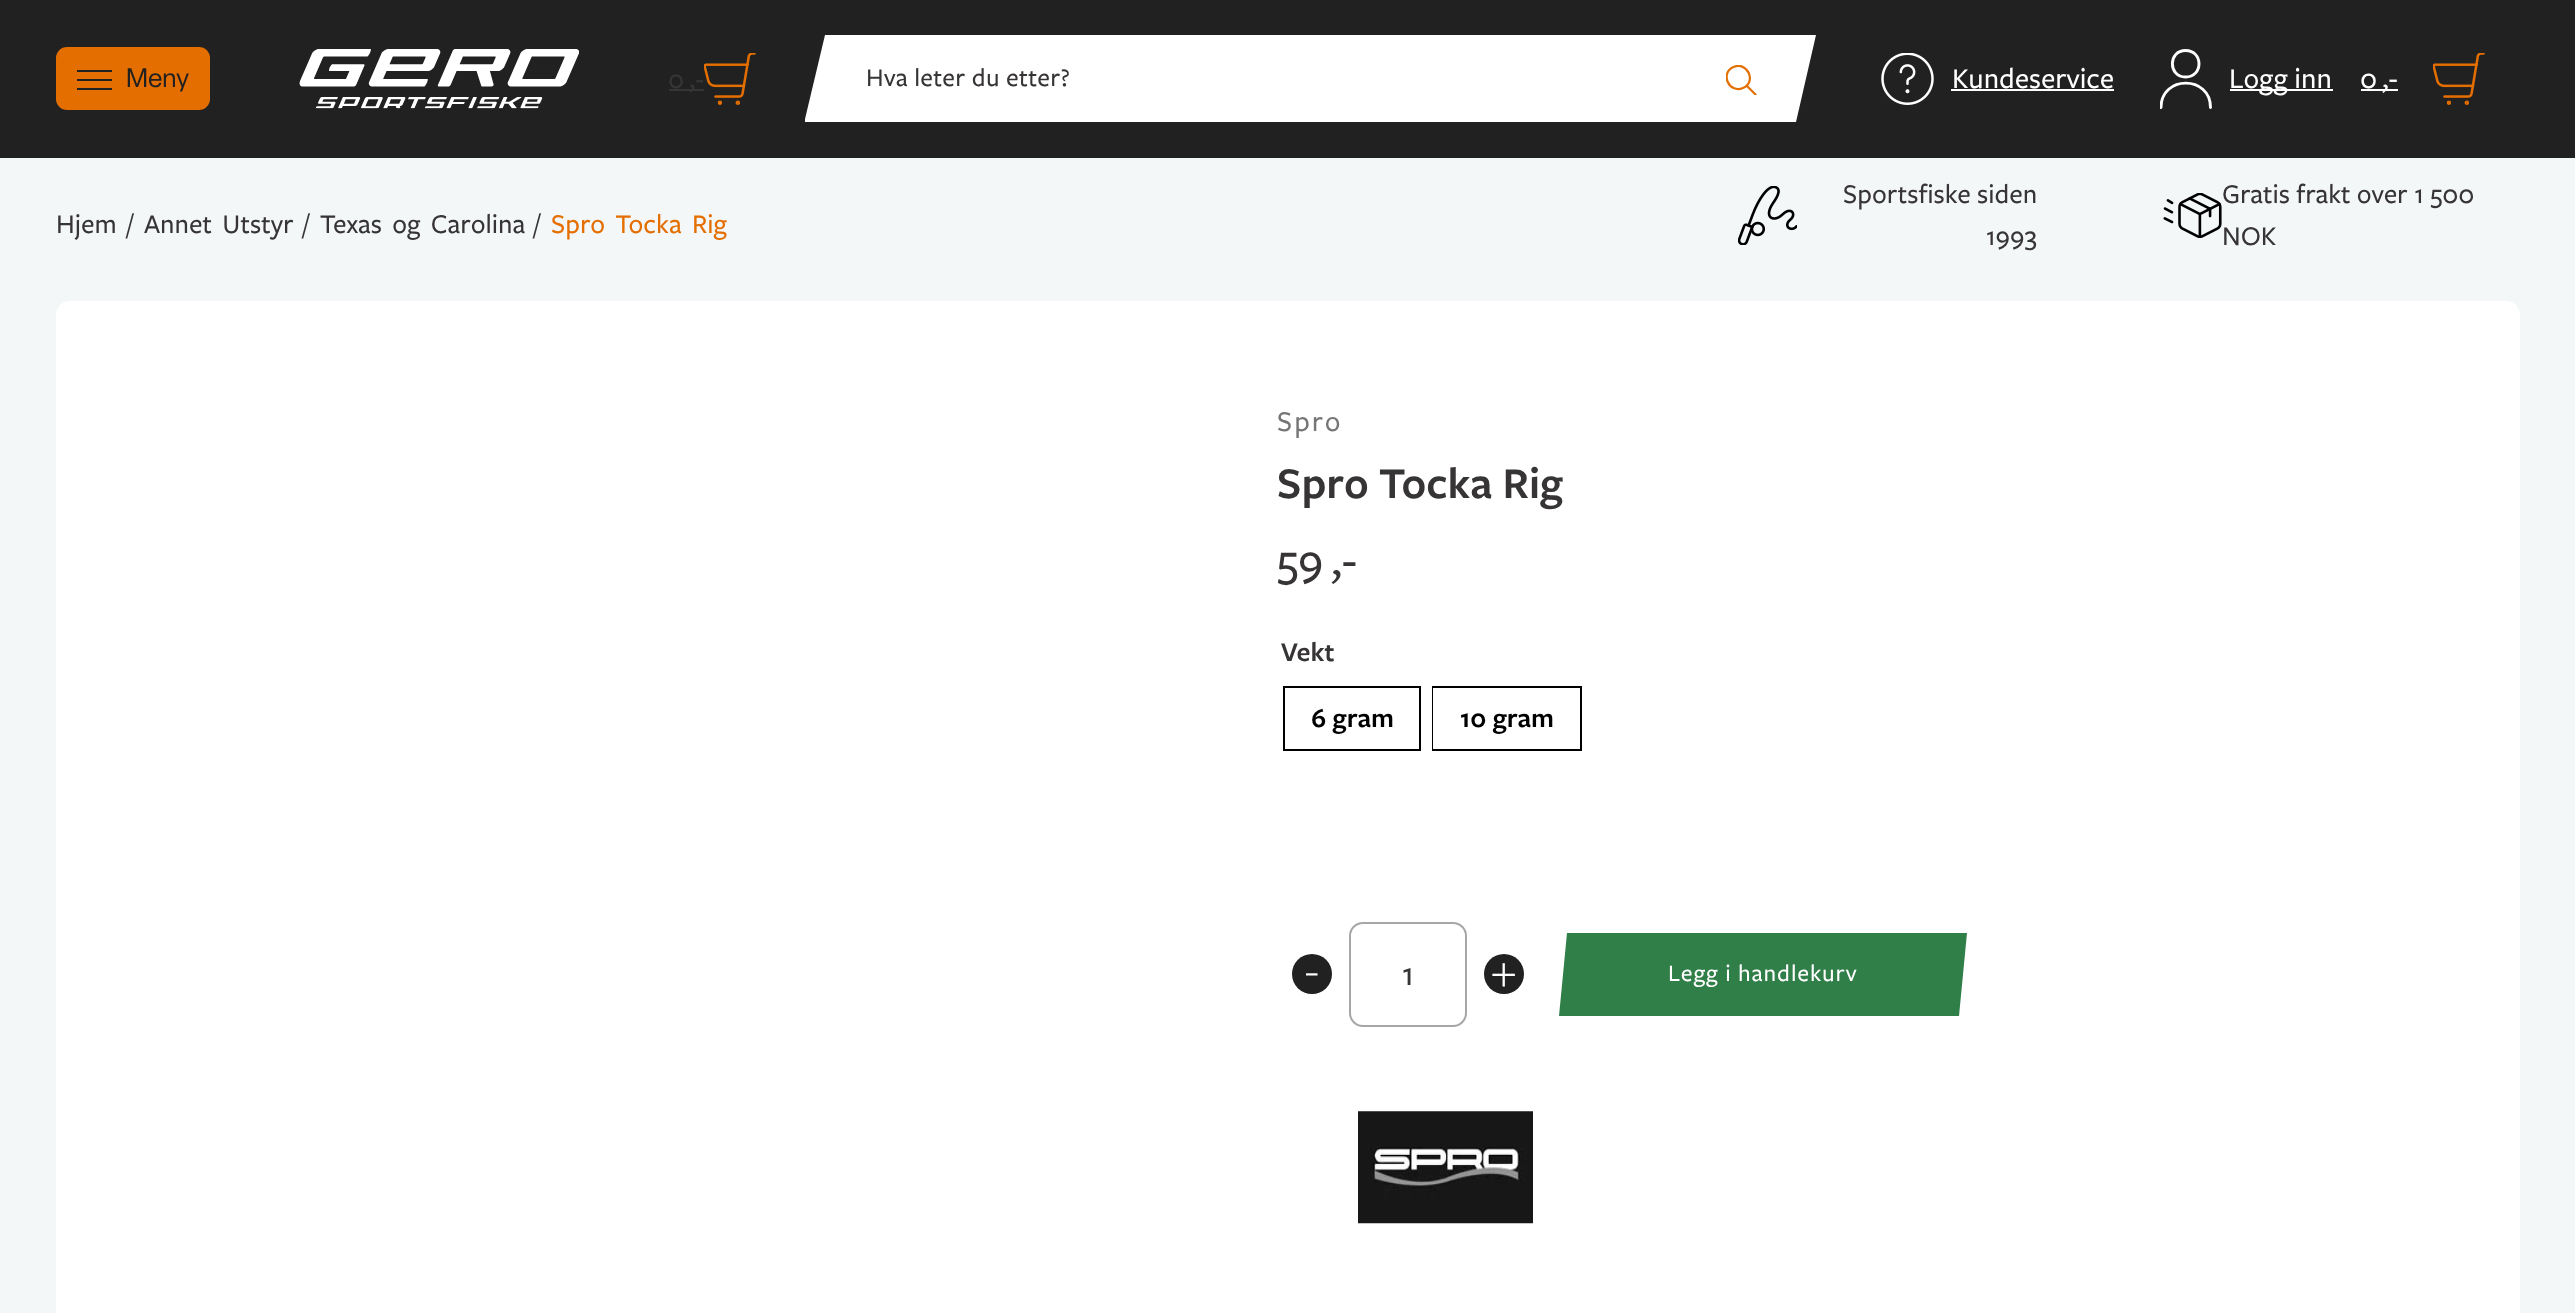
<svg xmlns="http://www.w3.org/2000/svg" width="2575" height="1313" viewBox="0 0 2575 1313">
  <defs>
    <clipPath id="clip1"><rect x="1726" y="65" width="31" height="30"/></clipPath>
    <clipPath id="clip2"><rect x="2160" y="49" width="52" height="60"/></clipPath>
  </defs>
  <rect width="100%" height="100%" fill="#f3f7f8"/>
  <rect x="0" y="0" width="2575" height="158" fill="#212121"/>
  <rect x="56" y="47" width="154" height="63" rx="11" fill="#e46e00"/>
  <rect x="77" y="70" width="35" height="2" fill="#212121"/>
  <rect x="77" y="79" width="35" height="2" fill="#212121"/>
  <rect x="77" y="88" width="35" height="2" fill="#212121"/>
  <text x="126" y="87" font-family="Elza" font-size="26.25" fill="#212121">Meny</text>
  <image x="299" y="49" width="280" height="60" href="img1.png"/>
  <text x="668" y="88" font-family="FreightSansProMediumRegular" font-size="28" font-weight="500" fill="#373435">0</text>
  <rect x="669" y="89" width="35" height="2" fill="#373435"/>
  <text x="689" y="88" font-family="FreightSansProMediumRegular" font-size="28" font-weight="500" fill="#373435">,-</text>
  <image x="704" y="53" width="52" height="52" href="img2.png"/>
  <path d="M825 35L805 119V122H1796L1816 35Z" fill="#ffffff"/>
  <text x="866" y="86" font-family="FreightSansProMediumRegular" font-size="26.25" font-weight="500" letter-spacing="0.3" fill="#373435">Hva leter du etter?</text>
  <g clip-path="url(#clip1)">
    <path d="M1743 88C1757 82 1747.5 61 1733.5 67C1719.5 73 1729 94 1743 88ZM1746.5 85.5L1755.5 94.5" fill="none" stroke="#e46e00" stroke-width="2.2" stroke-linecap="round" stroke-linejoin="round"/>
  </g>
  <image x="1881" y="53" width="53" height="52" href="img3.png"/>
  <text x="1952" y="88" font-family="FreightSansProMediumRegular" font-size="29.75" font-weight="500" fill="#ffffff">Kundeservice</text>
  <rect x="1951" y="89" width="163" height="2" fill="#ffffff"/>
  <path d="M2185.5 77C2203.5 77 2203.5 50.5 2185.5 50.5C2168 50.5 2168 77 2185.5 77Z" fill="none" stroke="#ffffff" stroke-width="2.9" stroke-linecap="round" stroke-linejoin="round"/>
  <g clip-path="url(#clip2)">
    <path d="M2161 107.5C2161 75 2210.5 75 2210.5 107.5" fill="none" stroke="#ffffff" stroke-width="2.9" stroke-linecap="round" stroke-linejoin="round"/>
  </g>
  <rect x="2230" y="89" width="103" height="2" fill="#ffffff"/>
  <text x="2229" y="88" font-family="FreightSansProMediumRegular" font-size="29.75" font-weight="500" fill="#ffffff">Logg inn</text>
  <text x="2360" y="88" font-family="FreightSansProMediumRegular" font-size="29.75" font-weight="500" fill="#ffffff">0</text>
  <rect x="2361" y="89" width="37" height="2" fill="#ffffff"/>
  <text x="2382" y="88" font-family="FreightSansProMediumRegular" font-size="29.75" font-weight="500" fill="#ffffff">,-</text>
  <image x="2433" y="53" width="52" height="52" href="img2.png"/>
  <text x="56" y="233" font-family="FreightSansProMediumRegular" font-size="28" font-weight="500" fill="#373435">Hjem</text>
  <text x="127" y="233" font-family="FreightSansProMediumRegular" font-size="28" font-weight="500" fill="#373435">/</text>
  <text x="144" y="233" word-spacing="4" font-family="FreightSansProMediumRegular" font-size="28" font-weight="500" fill="#373435">Annet Utstyr</text>
  <text x="303" y="233" font-family="FreightSansProMediumRegular" font-size="28" font-weight="500" fill="#373435">/</text>
  <text x="320" y="233" word-spacing="4" font-family="FreightSansProMediumRegular" font-size="28" font-weight="500" fill="#373435">Texas og Carolina</text>
  <text x="534" y="233" font-family="FreightSansProMediumRegular" font-size="28" font-weight="500" fill="#373435">/</text>
  <text x="551" y="233" word-spacing="4" font-family="FreightSansProMediumRegular" font-size="28" font-weight="500" fill="#e46e00">Spro Tocka Rig</text>
  <image x="1738" y="186" width="59" height="59" href="img4.png"/>
  <text x="1843" y="203" font-family="FreightSansProMediumRegular" font-size="28" font-weight="500" fill="#373435">Sportsfiske siden</text>
  <text x="1986" y="245" font-family="FreightSansProMediumRegular" font-size="28" font-weight="500" fill="#373435">1993</text>
  <image x="2163" y="193" width="59" height="45" href="img5.png"/>
  <text x="2222" y="203" font-family="FreightSansProMediumRegular" font-size="28" font-weight="500" fill="#373435">Gratis frakt over 1 500</text>
  <text x="2222" y="245" font-family="FreightSansProMediumRegular" font-size="28" font-weight="500" fill="#373435">NOK</text>
  <rect x="56" y="301" width="2464" height="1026" rx="14" fill="#ffffff"/>
  <text x="1277" y="431" font-family="FreightSansProMediumRegular" font-size="29.75" font-weight="500" letter-spacing="2" fill="#767676">Spro</text>
  <text x="1277" y="498" font-family="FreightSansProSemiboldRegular" font-size="45.5" font-weight="600" fill="#373435">Spro Tocka Rig</text>
  <text x="1277" y="576" font-family="FreightSansProMediumRegular" font-size="49" font-weight="500" fill="#373435">59</text>
  <text x="1331" y="576" font-family="FreightSansProMediumRegular" font-size="49" font-weight="500" fill="#373435">,-</text>
  <text x="1281" y="661" font-family="FreightSansProSemiboldRegular" font-size="28" font-weight="600" fill="#373435">Vekt</text>
  <rect x="1284" y="687" width="136" height="63" fill="none" stroke="#000000" stroke-width="2"/>
  <text x="1311" y="727" font-family="FreightSansProSemiboldRegular" font-size="28" font-weight="600" fill="#000000">6 gram</text>
  <rect x="1433" y="687" width="148" height="63" fill="none" stroke="#000000" stroke-width="2"/>
  <rect x="1433" y="688" width="1" height="61" fill="#ffffff"/>
  <text x="1460" y="727" font-family="FreightSansProSemiboldRegular" font-size="28" font-weight="600" fill="#000000">10 gram</text>
  <circle cx="1312" cy="974" r="20" fill="#212121"/>
  <text x="1304" y="988" font-family="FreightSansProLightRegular" font-size="56" font-weight="300" fill="#ffffff">-</text>
  <rect x="1350" y="923" width="116" height="103" rx="13" fill="none" stroke="#a6a6a6" stroke-width="2"/>
  <text x="1402" y="985" font-family="FreightSansProMediumRegular" font-size="35" font-weight="500" fill="#373435">1</text>
  <circle cx="1504" cy="974" r="20" fill="#212121"/>
  <text x="1490" y="988" font-family="FreightSansProLightRegular" font-size="56" font-weight="300" fill="#ffffff">+</text>
  <path d="M1967 933L1959 1016H1559L1567 933Z" fill="#307e48"/>
  <text x="1668" y="981" font-family="FreightSansProMediumRegular" font-size="24.5" font-weight="500" letter-spacing="0.9" fill="#ffffff">Legg i handlekurv</text>
  <image x="1358" y="1111" width="175" height="113" href="img6.png"/>
</svg>
